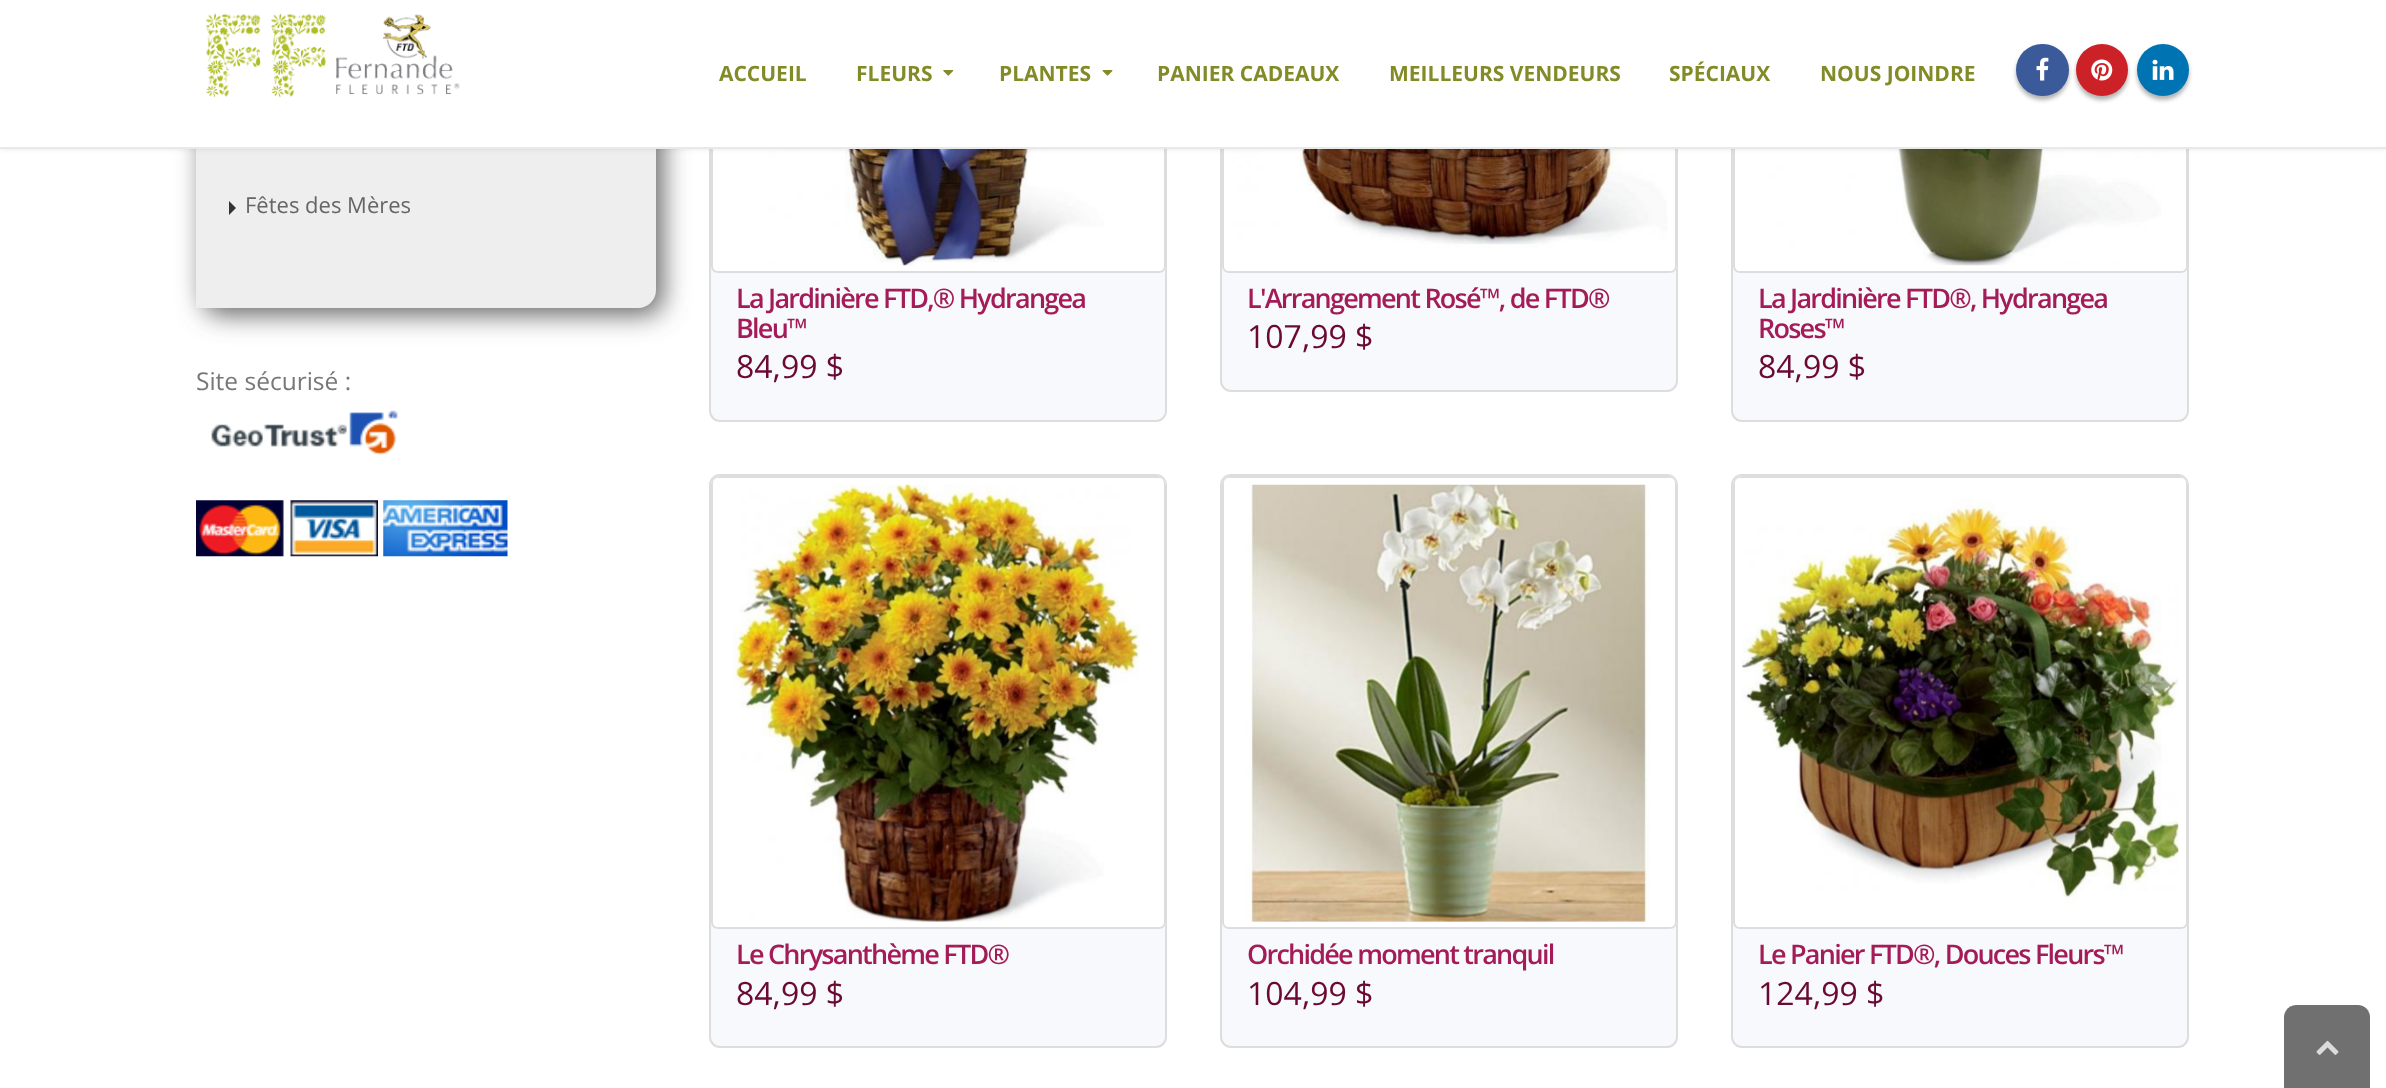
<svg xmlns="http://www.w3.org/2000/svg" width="2386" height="1088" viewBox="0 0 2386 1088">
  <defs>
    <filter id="blur1" x="-50%" y="-200%" width="200%" height="500%"><feGaussianBlur stdDeviation="13"/></filter>
    <filter id="blur2" x="-50%" y="-200%" width="200%" height="500%"><feGaussianBlur stdDeviation="2.5"/></filter>
    <filter id="blur3" x="-50%" y="-200%" width="200%" height="500%"><feGaussianBlur stdDeviation="2"/></filter>
  </defs>
  <rect width="100%" height="100%" fill="#ffffff"/>
  <rect x="203" y="-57" width="460" height="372" rx="18" fill="#666666" filter="url(#blur1)"/>
  <path d="M196-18H638C648-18 656-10 656 0V290C656 300 648 308 638 308H196Z" fill="#eeeeee"/>
  <rect x="710" y="-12" width="456" height="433" rx="10" fill="#f7f9fc" stroke="#dddddd" stroke-width="2"/>
  <path d="M720-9H1157C1162-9 1166-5 1166 0V266C1166 270 1163 273 1159 273H718C714 273 711 270 711 266V0C711-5 715-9 720-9Z" fill="#ffffff"/>
  <path d="M720-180C715-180 711-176 711-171V266C711 270 714 273 718 273H1159C1163 273 1166 270 1166 266V-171C1166-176 1162-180 1157-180ZM718-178C715-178 713-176 713-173V266C713 269 715 271 718 271H1159C1162 271 1164 269 1164 266V-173C1164-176 1162-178 1159-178Z" fill="#dddddd" fill-rule="evenodd"/>
  <image x="746" y="149" width="390" height="117" href="img11.png"/>
  <rect x="1221" y="-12" width="456" height="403" rx="10" fill="#f7f9fc" stroke="#dddddd" stroke-width="2"/>
  <path d="M1231-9H1668C1673-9 1677-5 1677 0V266C1677 270 1674 273 1670 273H1229C1225 273 1222 270 1222 266V0C1222-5 1226-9 1231-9Z" fill="#ffffff"/>
  <path d="M1231-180C1226-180 1222-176 1222-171V266C1222 270 1225 273 1229 273H1670C1674 273 1677 270 1677 266V-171C1677-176 1673-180 1668-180ZM1229-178C1226-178 1224-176 1224-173V266C1224 269 1226 271 1229 271H1670C1673 271 1675 269 1675 266V-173C1675-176 1673-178 1670-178Z" fill="#dddddd" fill-rule="evenodd"/>
  <image x="1231" y="149" width="437" height="99" href="img12.png"/>
  <rect x="1732" y="-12" width="456" height="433" rx="10" fill="#f7f9fc" stroke="#dddddd" stroke-width="2"/>
  <path d="M1742-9H2179C2184-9 2188-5 2188 0V266C2188 270 2185 273 2181 273H1740C1736 273 1733 270 1733 266V0C1733-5 1737-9 1742-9Z" fill="#ffffff"/>
  <path d="M1742-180C1737-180 1733-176 1733-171V266C1733 270 1736 273 1740 273H2181C2185 273 2188 270 2188 266V-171C2188-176 2184-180 2179-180ZM1740-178C1737-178 1735-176 1735-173V266C1735 269 1737 271 1740 271H2181C2184 271 2186 269 2186 266V-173C2186-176 2184-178 2181-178Z" fill="#dddddd" fill-rule="evenodd"/>
  <image x="1755" y="149" width="407" height="117" href="img13.png"/>
  <rect x="0" y="-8" width="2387" height="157" fill="#000000" fill-opacity="0.1" filter="url(#blur2)"/>
  <rect x="0" y="0" width="2386" height="147" fill="#ffffff"/>
  <rect x="0" y="147" width="2386" height="2" fill="#e9e9e9"/>
  <image x="205" y="13" width="255" height="85" href="img1.png"/>
  <text x="719" y="81" font-family="Open Sans" font-size="21" font-weight="bold" fill="#828b27">ACCUEIL</text>
  <text x="856" y="81" font-family="Open Sans" font-size="21" font-weight="bold" fill="#828b27">FLEURS</text>
  <image x="943" y="70" width="11" height="6" href="img2.png"/>
  <text x="999" y="81" font-family="Open Sans" font-size="21" font-weight="bold" fill="#828b27">PLANTES</text>
  <image x="1102" y="70" width="11" height="6" href="img3.png"/>
  <text x="1157" y="81" font-family="Open Sans" font-size="21" font-weight="bold" fill="#828b27">PANIER CADEAUX</text>
  <text x="1389" y="81" font-family="Open Sans" font-size="21" font-weight="bold" fill="#828b27">MEILLEURS VENDEURS</text>
  <text x="1669" y="81" font-family="Open Sans" font-size="21" font-weight="bold" fill="#828b27">SPÉCIAUX</text>
  <text x="1820" y="81" font-family="Open Sans" font-size="21" font-weight="bold" fill="#828b27">NOUS JOINDRE</text>
  <rect x="2016" y="47" width="53" height="53" rx="26.5" fill="#000000" fill-opacity="0.3" filter="url(#blur3)"/>
  <rect x="2016" y="44" width="53" height="52" rx="26" fill="#3b5a9a"/>
  <image x="2036" y="57" width="13" height="24" href="img4.png"/>
  <rect x="2076" y="47" width="52" height="53" rx="26" fill="#000000" fill-opacity="0.3" filter="url(#blur3)"/>
  <circle cx="2102" cy="70" r="26" fill="#cc2127"/>
  <image x="2091" y="59" width="22" height="22" href="img5.png"/>
  <rect x="2137" y="47" width="52" height="53" rx="26" fill="#000000" fill-opacity="0.3" filter="url(#blur3)"/>
  <circle cx="2163" cy="70" r="26" fill="#0073b2"/>
  <image x="2152" y="59" width="22" height="21" href="img6.png"/>
  <path d="M229 215V201L236 208Z" fill="#333333"/>
  <text x="245" y="213" font-family="Open Sans" font-size="22" fill="#666666">Fêtes des Mères</text>
  <text x="196" y="390" font-family="Open Sans" font-size="24.5" fill="#777777">Site sécurisé :</text>
  <image x="211" y="410" width="187" height="46" href="img7.png"/>
  <image x="196" y="500" width="88" height="57" href="img8.png"/>
  <image x="290" y="500" width="88" height="57" href="img9.png"/>
  <image x="383" y="500" width="125" height="57" href="img10.png"/>
  <text x="736" y="308" font-family="Open Sans" font-size="27" font-weight="600" letter-spacing="-1.75" fill="#a31c57">La Jardinière FTD,® Hydrangea</text>
  <text x="736" y="338" font-family="Open Sans" font-size="27" font-weight="600" letter-spacing="-1.75" fill="#a31c57">Bleu™</text>
  <text x="736" y="378" font-family="Open Sans" font-size="32" fill="#6a0934">84,99 $</text>
  <text x="1247" y="308" font-family="Open Sans" font-size="27" font-weight="600" letter-spacing="-1.75" fill="#a31c57">L'Arrangement Rosé™, de FTD®</text>
  <text x="1247" y="348" font-family="Open Sans" font-size="32" fill="#6a0934">107,99 $</text>
  <text x="1758" y="308" font-family="Open Sans" font-size="27" font-weight="600" letter-spacing="-1.75" fill="#a31c57">La Jardinière FTD®, Hydrangea</text>
  <text x="1758" y="338" font-family="Open Sans" font-size="27" font-weight="600" letter-spacing="-1.75" fill="#a31c57">Roses™</text>
  <text x="1758" y="378" font-family="Open Sans" font-size="32" fill="#6a0934">84,99 $</text>
  <rect x="710" y="475" width="456" height="572" rx="10" fill="#f7f9fc" stroke="#dddddd" stroke-width="2"/>
  <path d="M720 476H1157C1162 476 1166 480 1166 485V922C1166 926 1163 929 1159 929H718C714 929 711 926 711 922V485C711 480 715 476 720 476Z" fill="#ffffff"/>
  <path d="M720 476C715 476 711 480 711 485V922C711 926 714 929 718 929H1159C1163 929 1166 926 1166 922V485C1166 480 1162 476 1157 476ZM718 478C715 478 713 480 713 483V922C713 925 715 927 718 927H1159C1162 927 1164 925 1164 922V483C1164 480 1162 478 1159 478Z" fill="#dddddd" fill-rule="evenodd"/>
  <image x="733" y="484" width="407" height="438" href="img14.png"/>
  <text x="736" y="964" font-family="Open Sans" font-size="27" font-weight="600" letter-spacing="-1.75" fill="#a31c57">Le Chrysanthème FTD®</text>
  <text x="736" y="1005" font-family="Open Sans" font-size="32" fill="#6a0934">84,99 $</text>
  <rect x="1221" y="475" width="456" height="572" rx="10" fill="#f7f9fc" stroke="#dddddd" stroke-width="2"/>
  <path d="M1231 476H1668C1673 476 1677 480 1677 485V922C1677 926 1674 929 1670 929H1229C1225 929 1222 926 1222 922V485C1222 480 1226 476 1231 476Z" fill="#ffffff"/>
  <path d="M1231 476C1226 476 1222 480 1222 485V922C1222 926 1225 929 1229 929H1670C1674 929 1677 926 1677 922V485C1677 480 1673 476 1668 476ZM1229 478C1226 478 1224 480 1224 483V922C1224 925 1226 927 1229 927H1670C1673 927 1675 925 1675 922V483C1675 480 1673 478 1670 478Z" fill="#dddddd" fill-rule="evenodd"/>
  <image x="1244" y="484" width="406" height="438" href="img15.png"/>
  <text x="1247" y="964" font-family="Open Sans" font-size="27" font-weight="600" letter-spacing="-1.75" fill="#a31c57">Orchidée moment tranquil</text>
  <text x="1247" y="1005" font-family="Open Sans" font-size="32" fill="#6a0934">104,99 $</text>
  <rect x="1732" y="475" width="456" height="572" rx="10" fill="#f7f9fc" stroke="#dddddd" stroke-width="2"/>
  <path d="M1742 476H2179C2184 476 2188 480 2188 485V922C2188 926 2185 929 2181 929H1740C1736 929 1733 926 1733 922V485C1733 480 1737 476 1742 476Z" fill="#ffffff"/>
  <path d="M1742 476C1737 476 1733 480 1733 485V922C1733 926 1736 929 1740 929H2181C2185 929 2188 926 2188 922V485C2188 480 2184 476 2179 476ZM1740 478C1737 478 1735 480 1735 483V922C1735 925 1737 927 1740 927H2181C2184 927 2186 925 2186 922V483C2186 480 2184 478 2181 478Z" fill="#dddddd" fill-rule="evenodd"/>
  <image x="1742" y="498" width="437" height="407" href="img16.png"/>
  <text x="1758" y="964" font-family="Open Sans" font-size="27" font-weight="600" letter-spacing="-1.75" fill="#a31c57">Le Panier FTD®, Douces Fleurs™</text>
  <text x="1758" y="1005" font-family="Open Sans" font-size="32" fill="#6a0934">124,99 $</text>
  <path d="M2296 1005H2358C2364.5 1005 2370 1010.5 2370 1017V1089H2284V1017C2284 1010.5 2289.5 1005 2296 1005Z" fill="#707070"/>
  <image x="2316" y="1040" width="23" height="15" href="img17.png"/>
</svg>
